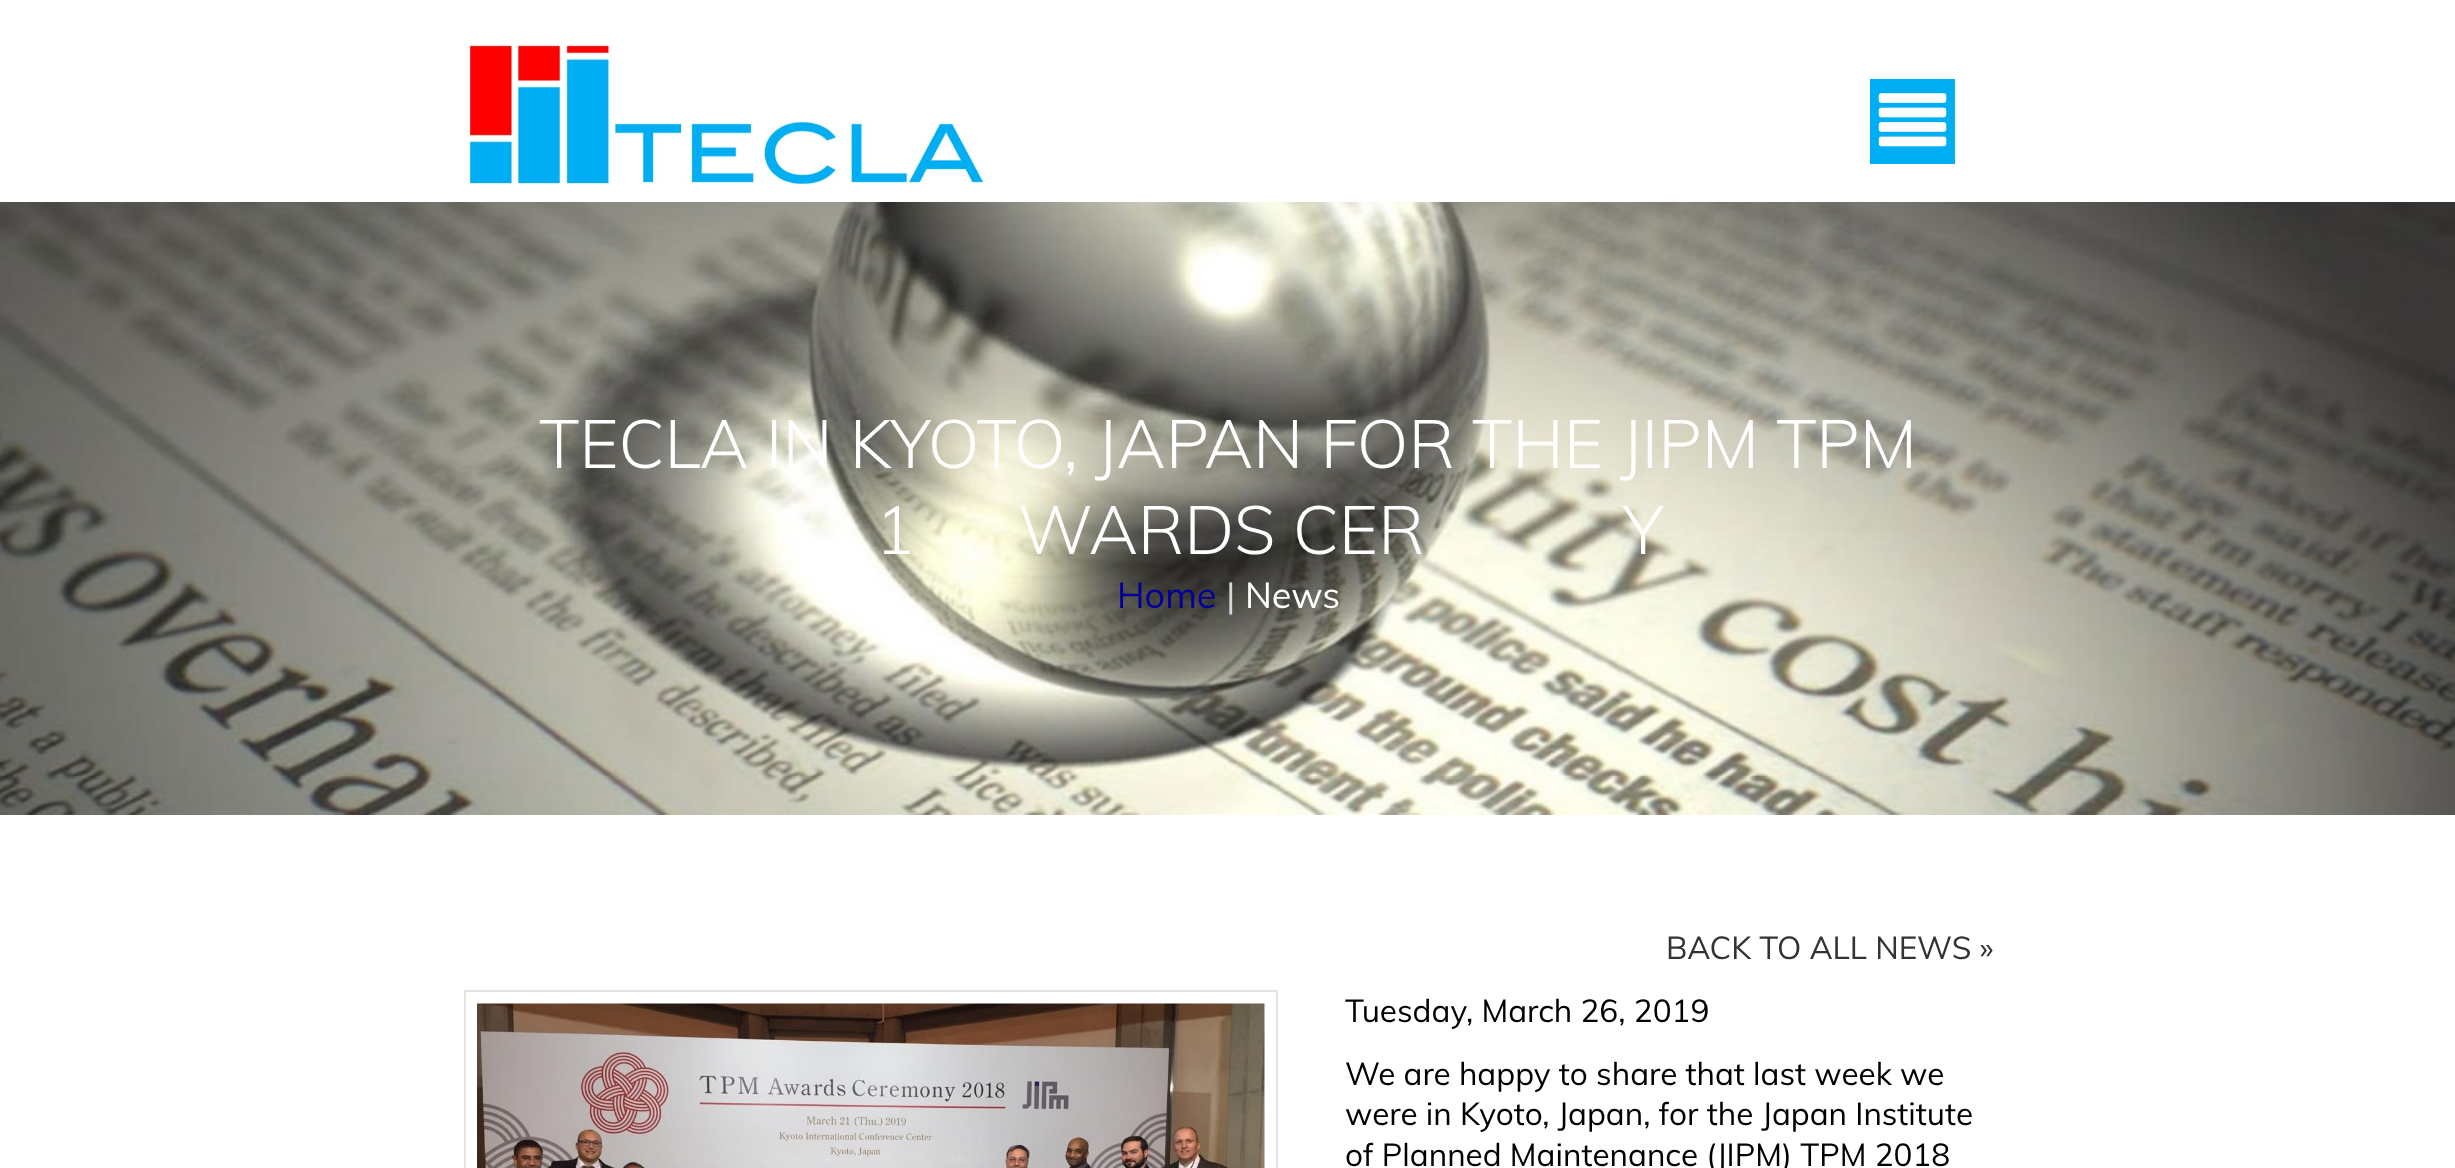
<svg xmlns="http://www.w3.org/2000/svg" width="2455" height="1168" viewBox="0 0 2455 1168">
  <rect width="100%" height="100%" fill="#ffffff"/>
  <image x="463" y="38" width="525" height="150" href="img1.png"/>
  <rect x="1870" y="79" width="85" height="85" fill="#00aef3"/>
  <image x="1878" y="93" width="69" height="54" href="img2.png"/>
  <image x="0" y="202" width="2455" height="613" href="img3.png"/>
  <text x="539" y="468" font-family="Muli" font-size="67.5" font-weight="300" fill="#ffffff">TECLA IN KYOTO, JAPAN FOR THE JIPM TPM</text>
  <text x="875" y="554" font-family="Muli" font-size="67.5" font-weight="300" fill="#ffffff">1</text>
  <text x="1018" y="554" font-family="Muli" font-size="67.5" font-weight="300" fill="#ffffff">WARDS CER</text>
  <text x="1623" y="554" font-family="Muli" font-size="67.5" font-weight="300" fill="#ffffff">Y</text>
  <text x="1117" y="608" font-family="Muli" font-size="36" fill="#000099">Home</text>
  <text x="1226" y="608" font-family="Muli" font-size="36" fill="#d7d7d7">|</text>
  <text x="1245" y="608" font-family="Muli" font-size="36" fill="#ffffff">News</text>
  <text x="1666" y="959" font-family="Muli" font-size="31.5" fill="#333333">BACK TO ALL NEWS »</text>
  <rect x="465" y="991" width="812" height="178" fill="none" stroke="#e5e5e5" stroke-width="2"/>
  <image x="477" y="1003" width="788" height="165" href="img4.png"/>
  <text x="1345" y="1022" font-family="Muli" font-size="31.5" fill="#000000">Tuesday, March 26, 2019</text>
  <text x="1345" y="1085" font-family="Muli" font-size="31.5" fill="#000000">We are happy to share that last week we</text>
  <text x="1345" y="1125" font-family="Muli" font-size="31.5" fill="#000000">were in Kyoto, Japan, for the Japan Institute</text>
  <text x="1345" y="1166" font-family="Muli" font-size="31.5" fill="#000000">of Planned Maintenance (JIPM) TPM 2018</text>
</svg>
